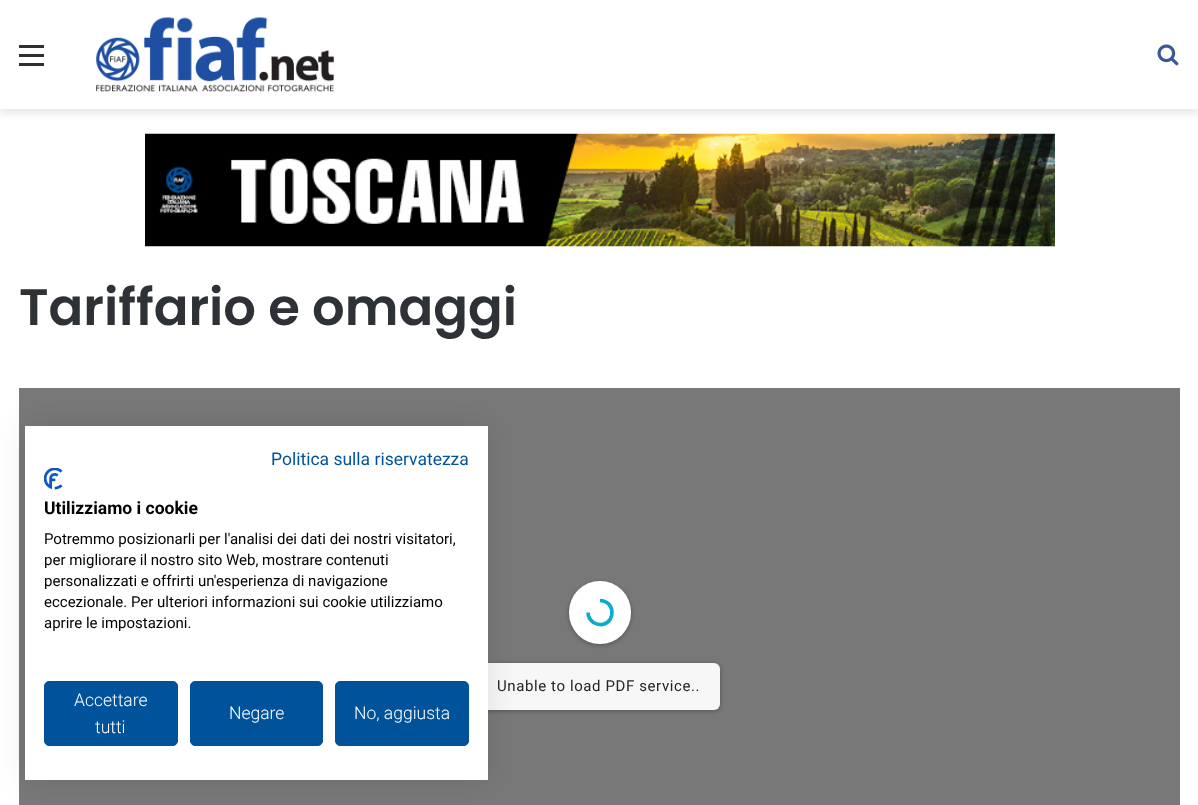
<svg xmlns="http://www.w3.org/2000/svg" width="1198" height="805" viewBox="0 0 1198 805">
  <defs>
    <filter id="blur1" x="-50%" y="-200%" width="200%" height="500%"><feGaussianBlur stdDeviation="4.5"/></filter>
    <filter id="blur2" x="-50%" y="-200%" width="200%" height="500%"><feGaussianBlur stdDeviation="2.5"/></filter>
    <filter id="blur3" x="-50%" y="-200%" width="200%" height="500%"><feGaussianBlur stdDeviation="15"/></filter>
  </defs>
  <rect width="100%" height="100%" fill="#ffffff"/>
  <rect x="0" y="4" width="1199" height="109" fill="#000000" fill-opacity="0.1" filter="url(#blur1)"/>
  <rect x="0" y="0" width="1198" height="109" fill="#ffffff"/>
  <rect x="19" y="54" width="25" height="3" fill="#2c2f34"/>
  <rect x="19" y="45" width="25" height="3" fill="#2c2f34"/>
  <rect x="19" y="63" width="25" height="3" fill="#2c2f34"/>
  <image x="96" y="17" width="238" height="75" href="img1.png"/>
  <image x="1157" y="44" width="22" height="22" href="img2.png"/>
  <image x="145" y="133" width="910" height="114" href="img3.png"/>
  <text x="19" y="325" font-family="Poppins" font-size="51.25" font-weight="600" fill="#2e3136">Tariffario e omaggi</text>
  <rect x="19" y="388" width="1161" height="417" fill="#787878"/>
  <rect x="569" y="583" width="62" height="62" rx="31" fill="#030303" fill-opacity="0.3" filter="url(#blur2)"/>
  <rect x="569" y="581" width="62" height="63" rx="31" fill="#ffffff"/>
  <path d="M600 600.5C614.5 600.5 616.5 621.5 602.5 624.5C599.5 625 596 624 593.5 622.5C590 620 588 616.5 588 612.5" fill="none" stroke="#09accd" stroke-width="3.6"/>
  <rect x="479" y="664" width="241" height="47" rx="6" fill="#030303" fill-opacity="0.3" filter="url(#blur2)"/>
  <rect x="479" y="663" width="241" height="47" rx="6" fill="#f7f7f7"/>
  <text x="497" y="691" font-family="Roboto" font-size="15" letter-spacing="0.6" fill="#242424">Unable to load PDF service..</text>
  <rect x="25" y="426" width="463" height="354" fill="#000000" fill-opacity="0.1" filter="url(#blur3)"/>
  <rect x="25" y="426" width="463" height="354" fill="#ffffff"/>
  <text x="271" y="465" font-family="Roboto" font-size="17.5" fill="#00539b">Politica sulla riservatezza</text>
  <image x="44" y="468" width="19" height="22" href="img4.png"/>
  <text x="44" y="514" font-family="Roboto" font-size="17.5" font-weight="bold" fill="#000000">Utilizziamo i cookie</text>
  <text x="44" y="544" font-family="Roboto" font-size="15" fill="#000000">Potremmo posizionarli per l'analisi dei dati dei nostri visitatori,</text>
  <text x="44" y="565" font-family="Roboto" font-size="15" fill="#000000">per migliorare il nostro sito Web, mostrare contenuti</text>
  <text x="44" y="586" font-family="Roboto" font-size="15" fill="#000000">personalizzati e offrirti un'esperienza di navigazione</text>
  <text x="44" y="607" font-family="Roboto" font-size="15" fill="#000000">eccezionale. Per ulteriori informazioni sui cookie utilizziamo</text>
  <text x="44" y="628" font-family="Roboto" font-size="15" fill="#000000">aprire le impostazioni.</text>
  <rect x="44.5" y="681.5" width="133" height="64" rx="4.5" fill="#00539b" stroke="#00539b"/>
  <text x="74" y="706" font-family="Roboto" font-size="17.5" font-weight="300" fill="#ffffff">Accettare</text>
  <text x="95" y="733" font-family="Roboto" font-size="17.5" font-weight="300" fill="#ffffff">tutti</text>
  <rect x="190.5" y="681.5" width="132" height="64" rx="4.5" fill="#00539b" stroke="#00539b"/>
  <text x="229" y="719" font-family="Roboto" font-size="17.5" font-weight="300" fill="#ffffff">Negare</text>
  <rect x="335.5" y="681.5" width="133" height="64" rx="4.5" fill="#00539b" stroke="#00539b"/>
  <text x="354" y="719" font-family="Roboto" font-size="17.5" font-weight="300" fill="#ffffff">No, aggiusta</text>
</svg>
